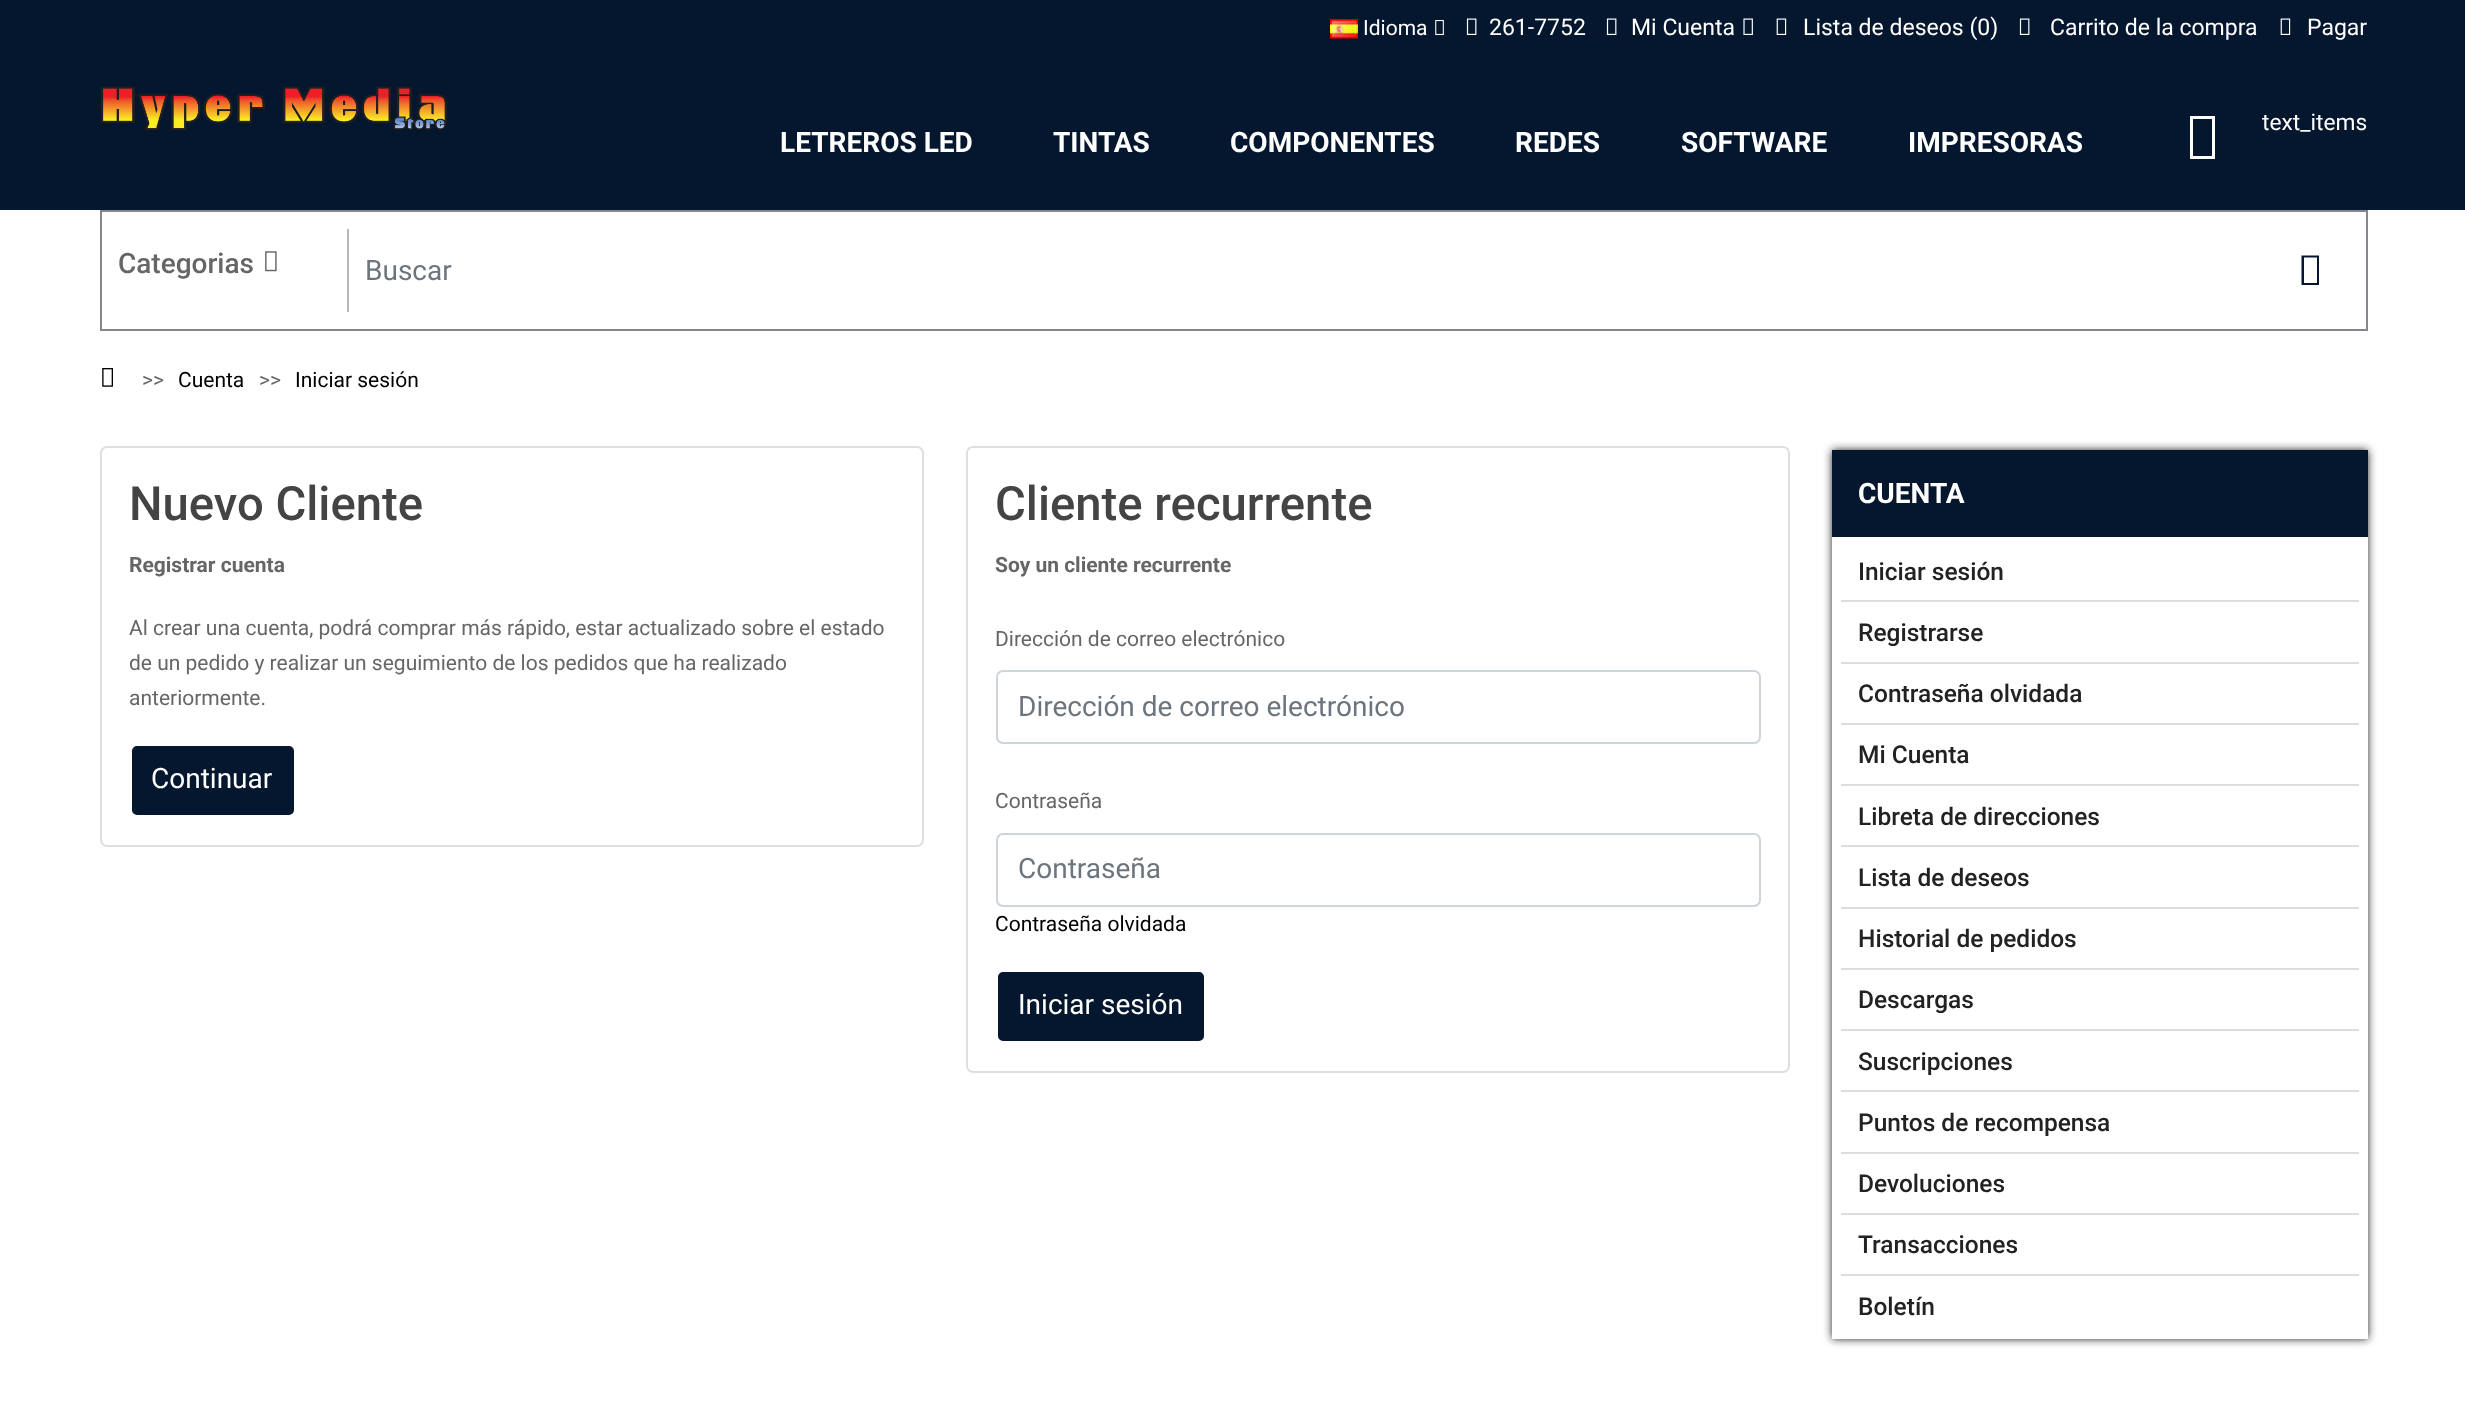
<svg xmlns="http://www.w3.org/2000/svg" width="2465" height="1407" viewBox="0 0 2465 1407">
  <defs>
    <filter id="blur1" x="-50%" y="-200%" width="200%" height="500%"><feGaussianBlur stdDeviation="4.5"/></filter>
  </defs>
  <rect width="100%" height="100%" fill="#ffffff"/>
  <rect x="0" y="0" width="2465" height="210" fill="#04172e"/>
  <image x="1330" y="19" width="28" height="20" href="img1.png"/>
  <text x="1363" y="35" font-family="Roboto" font-size="21" fill="#ffffff">Idioma</text>
  <image x="1435" y="20" width="9" height="15" href="img2.png"/>
  <image x="1466" y="18" width="11" height="17" href="img3.png"/>
  <text x="1489" y="35" font-family="Roboto" font-size="23" fill="#ffffff">261-7752</text>
  <image x="1606" y="18" width="11" height="17" href="img3.png"/>
  <text x="1631" y="35" font-family="Roboto" font-size="23" fill="#ffffff">Mi Cuenta</text>
  <image x="1743" y="18" width="10" height="17" href="img4.png"/>
  <image x="1776" y="18" width="11" height="17" href="img5.png"/>
  <text x="1803" y="35" font-family="Roboto" font-size="23" fill="#ffffff">Lista de deseos (0)</text>
  <image x="2019" y="18" width="11" height="17" href="img3.png"/>
  <text x="2050" y="35" font-family="Roboto" font-size="23" fill="#ffffff">Carrito de la compra</text>
  <image x="2280" y="18" width="11" height="17" href="img5.png"/>
  <text x="2307" y="35" font-family="Roboto" font-size="23" fill="#ffffff">Pagar</text>
  <image x="101" y="86" width="346" height="44" href="img6.png"/>
  <path d="M2190 159V116H2215V159ZM2193 156H2212V119H2193Z" fill="#ffffff"/>
  <text x="2262" y="130" font-family="Roboto" font-size="22.75" fill="#ffffff">text_items</text>
  <text x="780" y="152" font-family="Roboto" font-size="28" font-weight="bold" fill="#ffffff">LETREROS LED</text>
  <text x="1053" y="152" font-family="Roboto" font-size="28" font-weight="bold" fill="#ffffff">TINTAS</text>
  <text x="1230" y="152" font-family="Roboto" font-size="28" font-weight="bold" fill="#ffffff">COMPONENTES</text>
  <text x="1515" y="152" font-family="Roboto" font-size="28" font-weight="bold" fill="#ffffff">REDES</text>
  <text x="1681" y="152" font-family="Roboto" font-size="28" font-weight="bold" fill="#ffffff">SOFTWARE</text>
  <text x="1908" y="152" font-family="Roboto" font-size="28" font-weight="bold" fill="#ffffff">IMPRESORAS</text>
  <rect x="101" y="211" width="2266" height="119" fill="none" stroke="#84888c" stroke-width="2"/>
  <text x="118" y="273" font-family="Roboto" font-size="28" font-weight="500" fill="#666666">Categorias</text>
  <image x="265" y="251" width="12" height="21" href="img7.png"/>
  <rect x="347" y="229" width="2" height="83" fill="#bcb8b8"/>
  <text x="365" y="280" font-family="Roboto" font-size="28" fill="#6c757d">Buscar</text>
  <path d="M2301.5 285V255.5H2319V285ZM2304 283H2317V257.5H2304Z" fill="#04172e"/>
  <image x="102" y="368" width="11" height="19" href="img8.png"/>
  <text x="142" y="387" font-family="Roboto" font-size="21" fill="#666666">&gt;&gt;</text>
  <text x="178" y="387" font-family="Roboto" font-size="21" fill="#000000">Cuenta</text>
  <text x="259" y="387" font-family="Roboto" font-size="21" fill="#666666">&gt;&gt;</text>
  <text x="295" y="387" font-family="Roboto" font-size="21" fill="#000000">Iniciar sesión</text>
  <rect x="101" y="447" width="822" height="399" rx="6" fill="none" stroke="#dfdfdf" stroke-width="2"/>
  <text x="129" y="520" font-family="Roboto" font-size="47.25" font-weight="500" fill="#444444">Nuevo Cliente</text>
  <text x="129" y="572" font-family="Roboto" font-size="21" font-weight="bold" fill="#666666">Registrar cuenta</text>
  <text x="129" y="635" font-family="Roboto" font-size="21" fill="#666666">Al crear una cuenta, podrá comprar más rápido, estar actualizado sobre el estado</text>
  <text x="129" y="670" font-family="Roboto" font-size="21" fill="#666666">de un pedido y realizar un seguimiento de los pedidos que ha realizado</text>
  <text x="129" y="705" font-family="Roboto" font-size="21" fill="#666666">anteriormente.</text>
  <rect x="131" y="745" width="164" height="71" rx="6" fill="#04172e" stroke="#ffffff" stroke-width="2"/>
  <text x="151" y="788" font-family="Roboto" font-size="28" fill="#ffffff">Continuar</text>
  <rect x="967" y="447" width="822" height="625" rx="6" fill="none" stroke="#dfdfdf" stroke-width="2"/>
  <text x="995" y="520" font-family="Roboto" font-size="47.25" font-weight="500" fill="#444444">Cliente recurrente</text>
  <text x="995" y="572" font-family="Roboto" font-size="21" font-weight="bold" fill="#666666">Soy un cliente recurrente</text>
  <text x="995" y="646" font-family="Roboto" font-size="21" fill="#666666">Dirección de correo electrónico</text>
  <rect x="997" y="671" width="763" height="72" rx="6" fill="none" stroke="#ced4da" stroke-width="2"/>
  <text x="1018" y="716" font-family="Roboto" font-size="28" fill="#6c757d">Dirección de correo electrónico</text>
  <text x="995" y="808" font-family="Roboto" font-size="21" fill="#666666">Contraseña</text>
  <rect x="997" y="834" width="763" height="72" rx="6" fill="none" stroke="#ced4da" stroke-width="2"/>
  <text x="1018" y="878" font-family="Roboto" font-size="28" fill="#6c757d">Contraseña</text>
  <text x="995" y="931" font-family="Roboto" font-size="21" fill="#000000">Contraseña olvidada</text>
  <rect x="997" y="971" width="208" height="71" rx="6" fill="#04172e" stroke="#ffffff" stroke-width="2"/>
  <text x="1018" y="1014" font-family="Roboto" font-size="28" fill="#ffffff">Iniciar sesión</text>
  <rect x="1832" y="450" width="536" height="889" fill="#222222" filter="url(#blur1)"/>
  <rect x="1832" y="537" width="536" height="802" fill="#ffffff"/>
  <rect x="1832" y="450" width="536" height="87" fill="#04172e"/>
  <text x="1858" y="503" font-family="Roboto" font-size="28" font-weight="bold" fill="#ffffff">CUENTA</text>
  <rect x="1841" y="600" width="518" height="2" fill="#dddddd"/>
  <text x="1858" y="580" font-family="Roboto" font-size="24.5" font-weight="500" fill="#222222">Iniciar sesión</text>
  <rect x="1841" y="662" width="518" height="2" fill="#dddddd"/>
  <text x="1858" y="641" font-family="Roboto" font-size="24.5" font-weight="500" fill="#222222">Registrarse</text>
  <rect x="1841" y="723" width="518" height="2" fill="#dddddd"/>
  <text x="1858" y="702" font-family="Roboto" font-size="24.5" font-weight="500" fill="#222222">Contraseña olvidada</text>
  <rect x="1841" y="784" width="518" height="2" fill="#dddddd"/>
  <text x="1858" y="763" font-family="Roboto" font-size="24.5" font-weight="500" fill="#222222">Mi Cuenta</text>
  <rect x="1841" y="845" width="518" height="2" fill="#dddddd"/>
  <text x="1858" y="825" font-family="Roboto" font-size="24.5" font-weight="500" fill="#222222">Libreta de direcciones</text>
  <rect x="1841" y="907" width="518" height="2" fill="#dddddd"/>
  <text x="1858" y="886" font-family="Roboto" font-size="24.5" font-weight="500" fill="#222222">Lista de deseos</text>
  <rect x="1841" y="968" width="518" height="2" fill="#dddddd"/>
  <text x="1858" y="947" font-family="Roboto" font-size="24.5" font-weight="500" fill="#222222">Historial de pedidos</text>
  <rect x="1841" y="1029" width="518" height="2" fill="#dddddd"/>
  <text x="1858" y="1008" font-family="Roboto" font-size="24.5" font-weight="500" fill="#222222">Descargas</text>
  <rect x="1841" y="1090" width="518" height="2" fill="#dddddd"/>
  <text x="1858" y="1070" font-family="Roboto" font-size="24.5" font-weight="500" fill="#222222">Suscripciones</text>
  <rect x="1841" y="1152" width="518" height="2" fill="#dddddd"/>
  <text x="1858" y="1131" font-family="Roboto" font-size="24.5" font-weight="500" fill="#222222">Puntos de recompensa</text>
  <rect x="1841" y="1213" width="518" height="2" fill="#dddddd"/>
  <text x="1858" y="1192" font-family="Roboto" font-size="24.5" font-weight="500" fill="#222222">Devoluciones</text>
  <rect x="1841" y="1274" width="518" height="2" fill="#dddddd"/>
  <text x="1858" y="1253" font-family="Roboto" font-size="24.5" font-weight="500" fill="#222222">Transacciones</text>
  <text x="1858" y="1315" font-family="Roboto" font-size="24.5" font-weight="500" fill="#222222">Boletín</text>
</svg>
